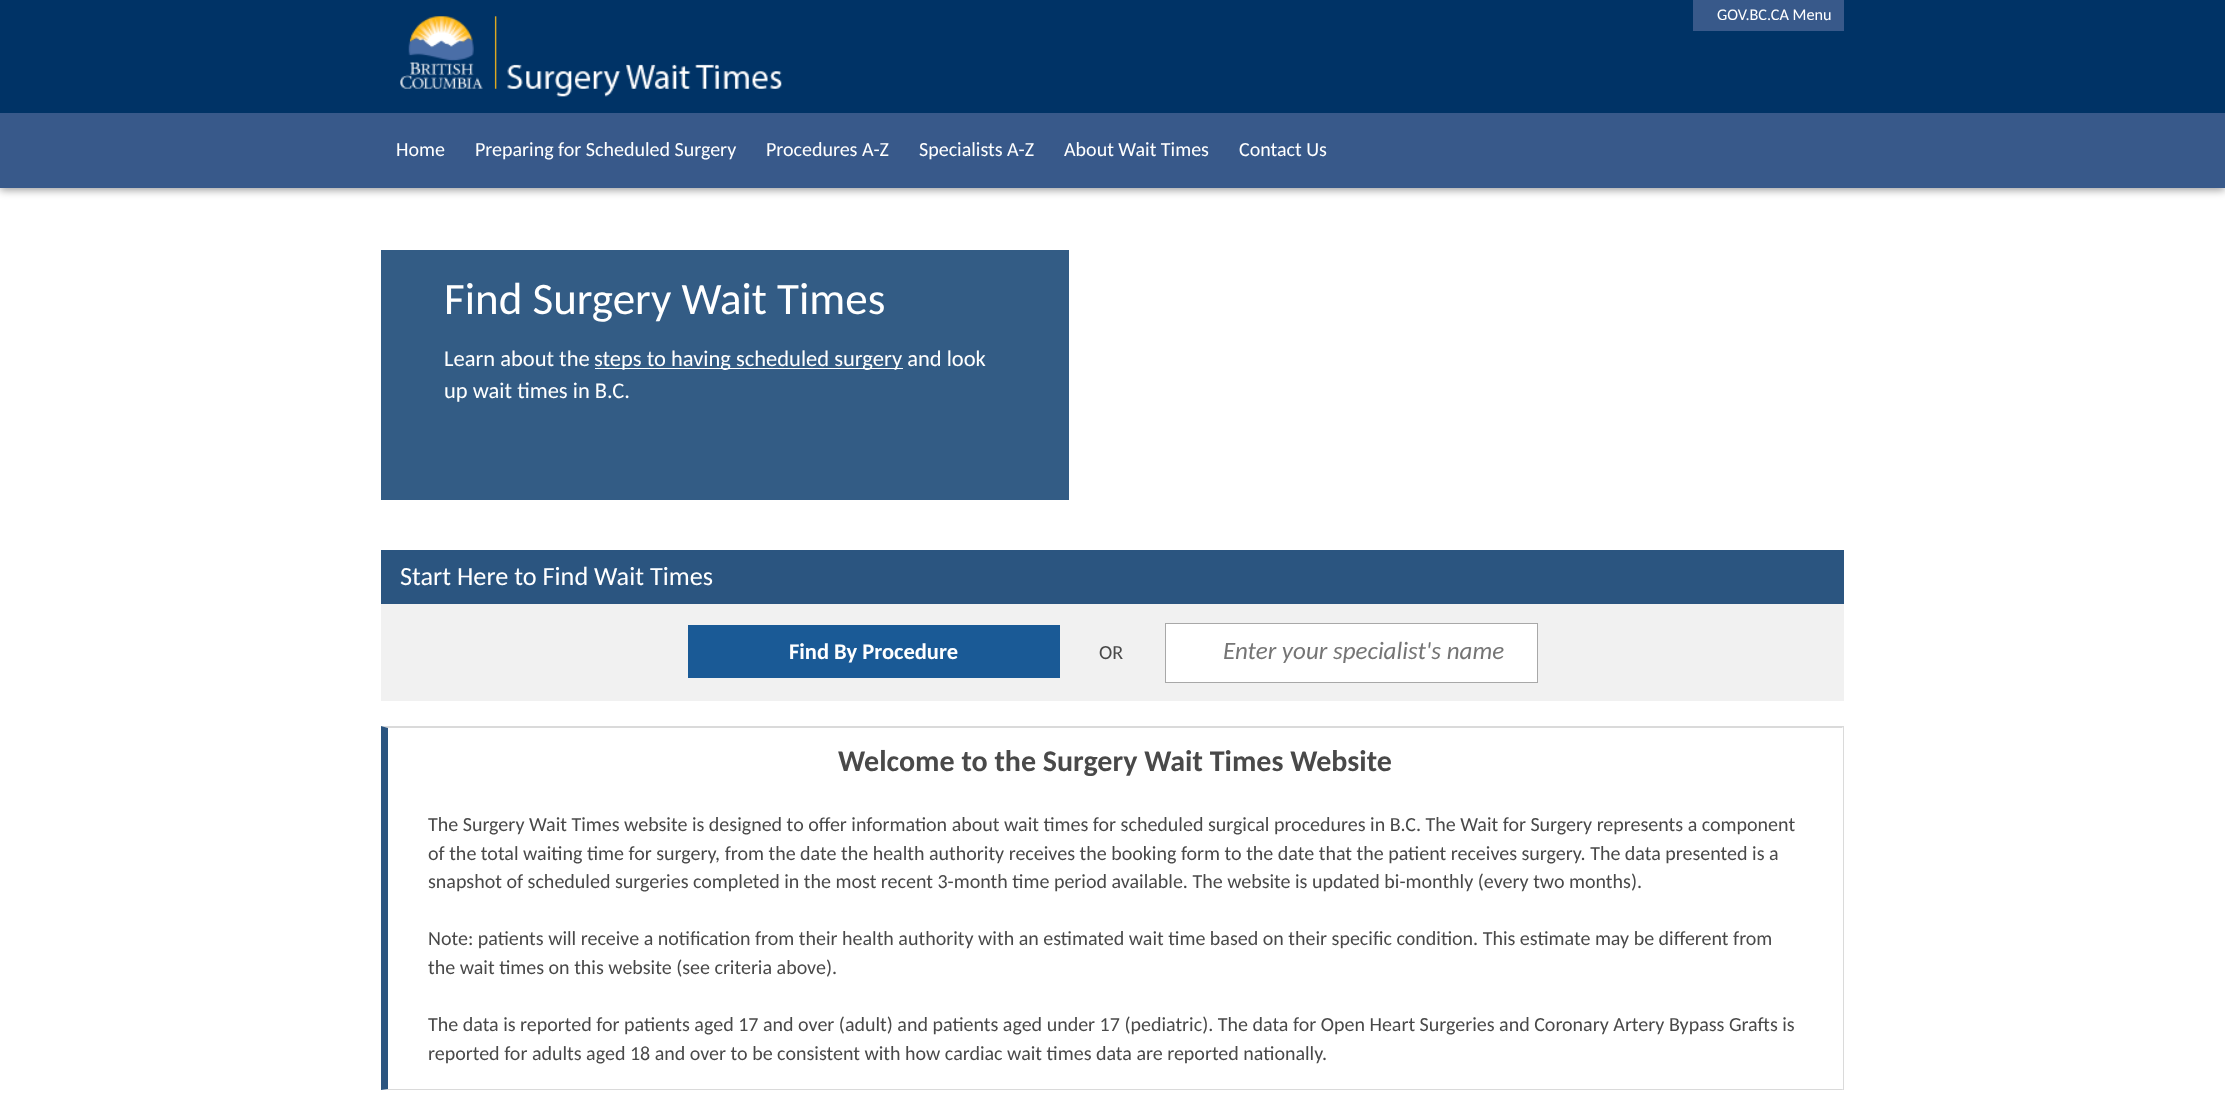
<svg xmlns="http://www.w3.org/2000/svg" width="2225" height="1108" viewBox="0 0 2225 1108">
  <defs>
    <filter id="blur1" x="-50%" y="-200%" width="200%" height="500%"><feGaussianBlur stdDeviation="4"/></filter>
  </defs>
  <rect width="100%" height="100%" fill="#ffffff"/>
  <rect x="0" y="3" width="2225" height="187" fill="#000000" fill-opacity="0.4" filter="url(#blur1)"/>
  <rect x="0" y="113" width="2225" height="75" fill="#38598a"/>
  <rect x="0" y="0" width="2225" height="113" fill="#003366"/>
  <image x="400" y="16" width="382" height="81" href="img1.png"/>
  <rect x="1693" y="0" width="151" height="31" fill="#38598a"/>
  <text x="1717" y="20" font-family="Carlito" font-size="16.25" fill="#ffffff">GOV.BC.CA Menu</text>
  <text x="396" y="156" font-family="Carlito" font-size="20" fill="#ffffff">Home</text>
  <text x="475" y="156" font-family="Carlito" font-size="20" fill="#ffffff">Preparing for Scheduled Surgery</text>
  <text x="766" y="156" font-family="Carlito" font-size="20" fill="#ffffff">Procedures A-Z</text>
  <text x="919" y="156" font-family="Carlito" font-size="20" fill="#ffffff">Specialists A-Z</text>
  <text x="1064" y="156" font-family="Carlito" font-size="20" fill="#ffffff">About Wait Times</text>
  <text x="1239" y="156" font-family="Carlito" font-size="20" fill="#ffffff">Contact Us</text>
  <rect x="381" y="250" width="688" height="250" fill="#335c85"/>
  <text x="444" y="314" font-family="Carlito" font-size="45" fill="#ffffff">Find Surgery Wait Times</text>
  <text x="444" y="366" font-family="Carlito" font-size="22.5" fill="#ffffff">Learn about the</text>
  <rect x="595" y="368" width="308" height="1" fill="#ffffff"/>
  <text x="594" y="366" font-family="Carlito" font-size="22.5" fill="#ffffff">steps to having scheduled surgery and look</text>
  <text x="444" y="398" font-family="Carlito" font-size="22.5" fill="#ffffff">up wait times in B.C.</text>
  <rect x="381" y="550" width="1463" height="54" fill="#2b5580"/>
  <text x="400" y="585" font-family="Carlito" font-size="26.25" fill="#ffffff">Start Here to Find Wait Times</text>
  <rect x="381" y="604" width="1463" height="97" fill="#f1f1f1"/>
  <rect x="688" y="625" width="372" height="53" fill="#1a5a96"/>
  <text x="789" y="659" font-family="Carlito" font-size="22.5" font-weight="bold" fill="#ffffff">Find By Procedure</text>
  <text x="1099" y="659" font-family="Carlito" font-size="20" fill="#494949">OR</text>
  <rect x="1165.5" y="623.5" width="372" height="59" fill="#ffffff" stroke="#a8a8a8"/>
  <text x="1223" y="659" font-family="Carlito" font-size="25" font-style="italic" fill="#757575">Enter your specialist's name</text>
  <path d="M381 726H1844L1842 728H388Z" fill="#dadada"/>
  <rect x="1843" y="726" width="1" height="364" fill="#dadada"/>
  <path d="M1844 1090H381L388 1089H1842Z" fill="#dadada"/>
  <path d="M381 1090V726L388 728V1089Z" fill="#2b5580"/>
  <text x="838" y="771" font-family="Carlito" font-size="30" font-weight="bold" fill="#494949">Welcome to the Surgery Wait Times Website</text>
  <text x="428" y="831" font-family="Carlito" font-size="20" fill="#494949">The Surgery Wait Times website is designed to offer information about wait times for scheduled surgical procedures in B.C. The Wait for Surgery represents a component</text>
  <text x="428" y="860" font-family="Carlito" font-size="20" fill="#494949">of the total waiting time for surgery, from the date the health authority receives the booking form to the date that the patient receives surgery. The data presented is a</text>
  <text x="428" y="888" font-family="Carlito" font-size="20" fill="#494949">snapshot of scheduled surgeries completed in the most recent 3-month time period available. The website is updated bi-monthly (every two months).</text>
  <text x="428" y="945" font-family="Carlito" font-size="20" fill="#494949">Note: patients will receive a notification from their health authority with an estimated wait time based on their specific condition. This estimate may be different from</text>
  <text x="428" y="974" font-family="Carlito" font-size="20" fill="#494949">the wait times on this website (see criteria above).</text>
  <text x="428" y="1031" font-family="Carlito" font-size="20" fill="#494949">The data is reported for patients aged 17 and over (adult) and patients aged under 17 (pediatric). The data for Open Heart Surgeries and Coronary Artery Bypass Grafts is</text>
  <text x="428" y="1060" font-family="Carlito" font-size="20" fill="#494949">reported for adults aged 18 and over to be consistent with how cardiac wait times data are reported nationally.</text>
</svg>
